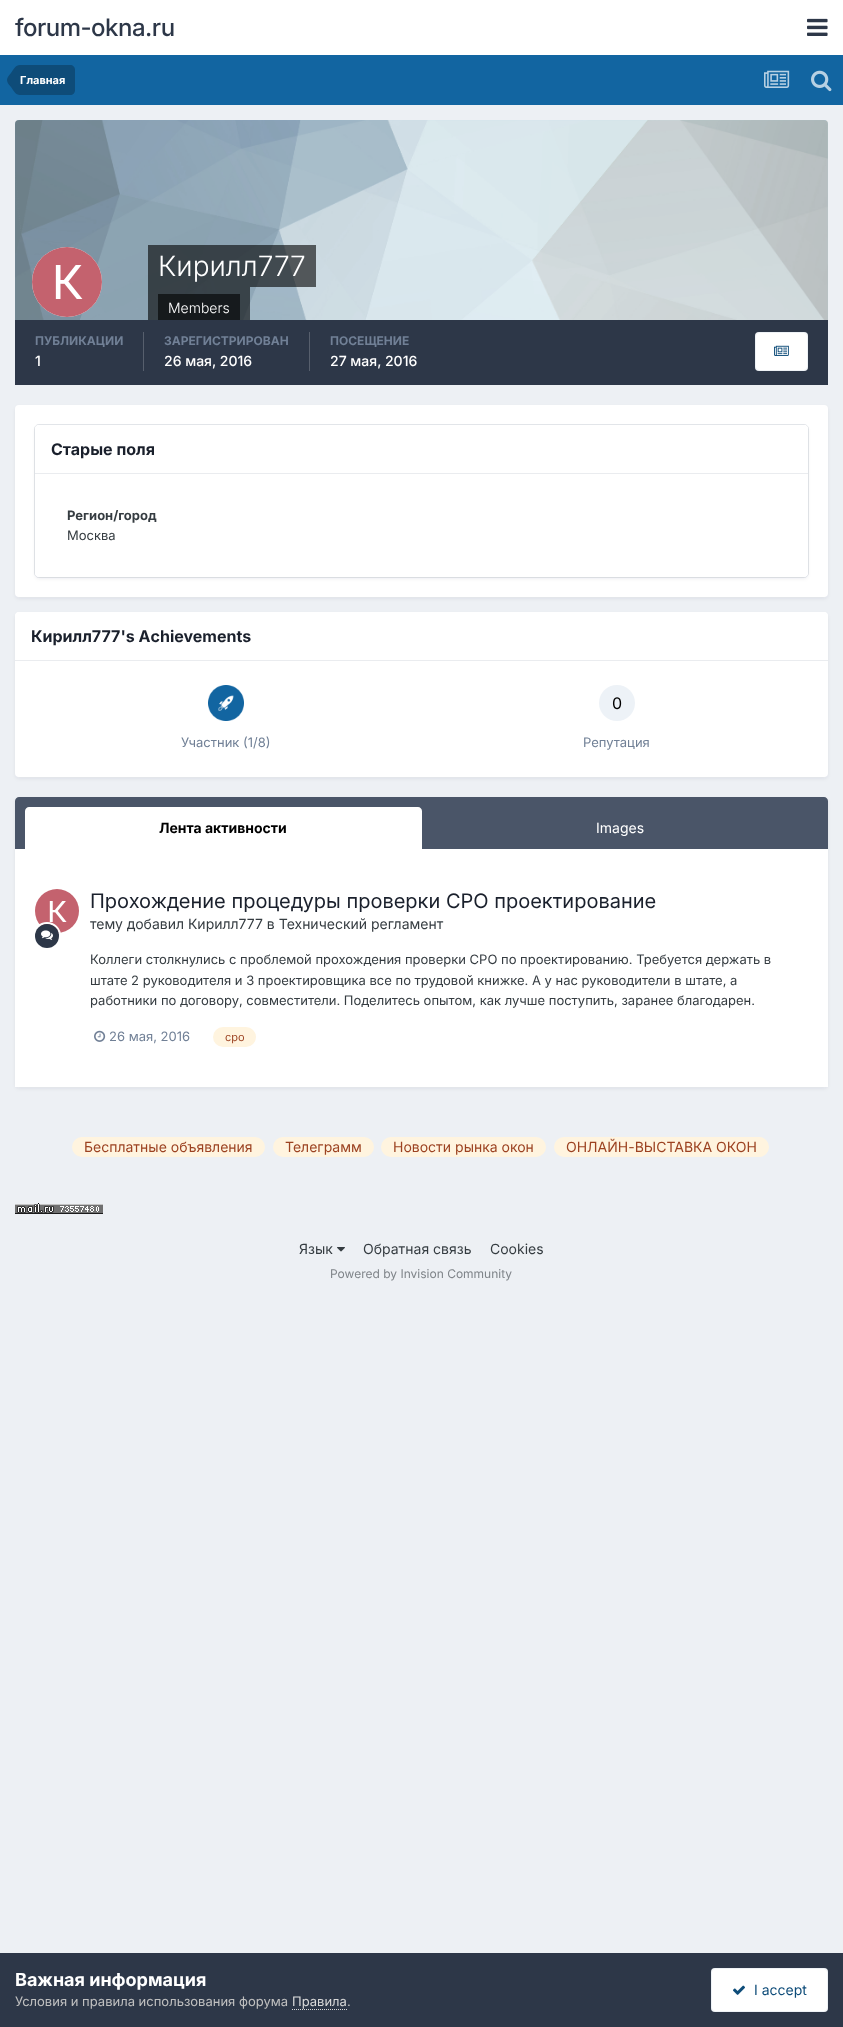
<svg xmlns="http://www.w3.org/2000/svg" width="843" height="2027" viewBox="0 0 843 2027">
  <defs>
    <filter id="blur1" x="-50%" y="-200%" width="200%" height="500%"><feGaussianBlur stdDeviation="2"/></filter>
  </defs>
  <rect width="100%" height="100%" fill="#edf0f4"/>
  <rect x="0" y="0" width="843" height="55" fill="#ffffff"/>
  <text x="15" y="36" font-family="Inter" font-size="24" font-weight="500" letter-spacing="-0.5" fill="#2d3748">forum-okna.ru</text>
  <image x="807" y="18" width="21" height="18" href="img1.png"/>
  <rect x="0" y="55" width="843" height="50" fill="#1265a1"/>
  <path d="M20 65H70C73 65 75 67 75 70V90C75 93 73 95 70 95H20Z" fill="#0e4c79"/>
  <path d="M20 80V95C15.5 95 13.5 90.5 11 87C9.5 85 7 83 7 80ZM20 80H7C7 77 9.5 75 11 73C13.5 69.5 15.5 65 20 65Z" fill="#0e4c79"/>
  <text x="20" y="84" font-family="Inter" font-size="11" font-weight="bold" fill="#ffffff">Главная</text>
  <image x="764" y="70" width="26" height="18" href="img2.png"/>
  <image x="811" y="70" width="21" height="22" href="img3.png"/>
  <path d="M19 120H824C826 120 828 122 828 124V320H15V124C15 122 17 120 19 120Z" fill="#99ddff"/>
  <image x="15" y="120" width="813" height="200" href="img4.png"/>
  <circle cx="67" cy="282" r="35" fill="#ffffff"/>
  <image x="32" y="247" width="70" height="70" href="img5.png"/>
  <rect x="148" y="245" width="168" height="42" fill="#000000" fill-opacity="0.6"/>
  <text x="158" y="276" font-family="Inter" font-size="28" font-weight="300" fill="#ffffff">Кирилл777</text>
  <rect x="148" y="287" width="102" height="33" fill="#000000" fill-opacity="0.6"/>
  <rect x="158" y="294" width="82" height="26" fill="#000000" fill-opacity="0.6"/>
  <text x="168" y="313" font-family="Inter" font-size="14" font-weight="300" fill="#ffffff">Members</text>
  <rect x="15" y="320" width="813" height="65" fill="#2d3748"/>
  <rect x="143" y="332" width="1" height="39" fill="#575f6d"/>
  <text x="35" y="345" font-family="Inter" font-size="12" font-weight="bold" fill="#718096">ПУБЛИКАЦИИ</text>
  <text x="35" y="366" font-family="Inter" font-size="14" font-weight="500" fill="#ffffff">1</text>
  <rect x="309" y="332" width="1" height="39" fill="#575f6d"/>
  <text x="164" y="345" font-family="Inter" font-size="12" font-weight="bold" fill="#718096">ЗАРЕГИСТРИРОВАН</text>
  <text x="164" y="366" font-family="Inter" font-size="14" font-weight="500" fill="#ffffff">26 мая, 2016</text>
  <text x="330" y="345" font-family="Inter" font-size="12" font-weight="bold" fill="#718096">ПОСЕЩЕНИЕ</text>
  <text x="330" y="366" font-family="Inter" font-size="14" font-weight="500" fill="#ffffff">27 мая, 2016</text>
  <rect x="755" y="332" width="53" height="39" rx="4" fill="#ffffff"/>
  <rect x="755.5" y="332.5" width="52" height="38" rx="3.5" fill="none" stroke="#0e4c79" stroke-opacity="0.07"/>
  <image x="774" y="345" width="15" height="11" href="img6.png"/>
  <rect x="16" y="408" width="811" height="190" rx="3" fill="#2d3748" fill-opacity="0.1" filter="url(#blur1)"/>
  <rect x="15" y="405" width="813" height="192" rx="4" fill="#ffffff"/>
  <rect x="36" y="428" width="771" height="150" rx="3" fill="#2d3748" fill-opacity="0.1" filter="url(#blur1)"/>
  <rect x="34.5" y="424.5" width="774" height="153" rx="4.5" fill="none" stroke="#718096" stroke-opacity="0.2"/>
  <rect x="35" y="425" width="773" height="152" rx="4" fill="#ffffff"/>
  <path d="M39 425H804C806 425 808 427 808 429V474H35V429C35 427 37 425 39 425Z" fill="#ffffff"/>
  <rect x="35" y="473" width="773" height="1" fill="#eaecef"/>
  <text x="51" y="455" font-family="Inter" font-size="16" font-weight="bold" fill="#1a202c">Старые поля</text>
  <text x="67" y="520" font-family="Inter" font-size="13" font-weight="bold" fill="#353c41">Регион/город</text>
  <text x="67" y="540" font-family="Inter" font-size="13" fill="#353c41">Москва</text>
  <rect x="16" y="615" width="811" height="163" rx="3" fill="#2d3748" fill-opacity="0.1" filter="url(#blur1)"/>
  <rect x="15" y="612" width="813" height="165" rx="4" fill="#ffffff"/>
  <path d="M19 612H824C826 612 828 614 828 616V661H15V616C15 614 17 612 19 612Z" fill="#ffffff"/>
  <rect x="15" y="660" width="813" height="1" fill="#eaecef"/>
  <text x="31" y="642" font-family="Inter" font-size="16" font-weight="bold" fill="#1a202c">Кирилл777's Achievements</text>
  <image x="208" y="685" width="36" height="36" href="img7.png"/>
  <text x="181" y="747" font-family="Inter" font-size="13" fill="#718096">Участник (1/8)</text>
  <circle cx="617" cy="703" r="18" fill="#edf2f7"/>
  <text x="612" y="709" font-family="Inter" font-size="16" fill="#000000">0</text>
  <text x="583" y="747" font-family="Inter" font-size="13" fill="#718096">Репутация</text>
  <rect x="16" y="800" width="811" height="288" rx="3" fill="#2d3748" fill-opacity="0.1" filter="url(#blur1)"/>
  <path d="M19 797H824C826 797 828 799 828 801V849H15V801C15 799 17 797 19 797Z" fill="#4a5568"/>
  <path d="M29 807H418C420 807 422 809 422 811V849H25V811C25 809 27 807 29 807Z" fill="#ffffff"/>
  <text x="159" y="833" font-family="Inter" font-size="14" font-weight="bold" fill="#000000">Лента активности</text>
  <text x="596" y="833" font-family="Inter" font-size="14" fill="#ffffff">Images</text>
  <rect x="15" y="849" width="813" height="238" fill="#ffffff"/>
  <image x="35" y="889" width="44" height="44" href="img8.png"/>
  <text x="90" y="908" font-family="Inter" font-size="20" fill="#1a202c">Прохождение процедуры проверки СРО проектирование</text>
  <text x="90" y="929" font-family="Inter" font-size="14" fill="#353c41">тему добавил Кирилл777 в Технический регламент</text>
  <circle cx="47" cy="936" r="13" fill="none" stroke="#ffffff" stroke-width="2"/>
  <circle cx="47" cy="936" r="12" fill="#2d3748"/>
  <image x="41" y="930" width="12" height="10" href="img9.png"/>
  <text x="90" y="964" font-family="Inter" font-size="13" fill="#353c41">Коллеги столкнулись с проблемой прохождения проверки СРО по проектированию. Требуется держать в</text>
  <text x="90" y="985" font-family="Inter" font-size="13" fill="#353c41">штате 2 руководителя и 3 проектировщика все по трудовой книжке. А у нас руководители в штате, а</text>
  <text x="90" y="1005" font-family="Inter" font-size="13" fill="#353c41">работники по договору, совместители. Поделитесь опытом, как лучше поступить, заранее благодарен.</text>
  <image x="94" y="1030" width="12" height="12" href="img10.png"/>
  <text x="109" y="1041" font-family="Inter" font-size="13" fill="#718096">26 мая, 2016</text>
  <rect x="213" y="1027" width="43" height="20" rx="10" fill="#fff4df"/>
  <text x="225" y="1041" font-family="Inter" font-size="11" fill="#9c4221">сро</text>
  <rect x="72" y="1137" width="193" height="20" rx="10" fill="#fff4df"/>
  <text x="84" y="1152" font-family="Inter" font-size="14" fill="#9c4221">Бесплатные объявления</text>
  <rect x="273" y="1137" width="101" height="20" rx="10" fill="#fff4df"/>
  <text x="285" y="1152" font-family="Inter" font-size="14" fill="#9c4221">Телеграмм</text>
  <rect x="381" y="1137" width="165" height="20" rx="10" fill="#fff4df"/>
  <text x="393" y="1152" font-family="Inter" font-size="14" fill="#9c4221">Новости рынка окон</text>
  <rect x="554" y="1137" width="215" height="20" rx="10" fill="#fff4df"/>
  <text x="566" y="1152" font-family="Inter" font-size="14" fill="#9c4221">ОНЛАЙН-ВЫСТАВКА ОКОН</text>
  <image x="15" y="1203" width="88" height="11" href="img11.png"/>
  <text x="299" y="1254" font-family="Inter" font-size="14" fill="#353c41">Язык</text>
  <image x="337" y="1247" width="8" height="5" href="img12.png"/>
  <text x="363" y="1254" font-family="Inter" font-size="14" fill="#353c41">Обратная связь</text>
  <text x="490" y="1254" font-family="Inter" font-size="14" fill="#353c41">Cookies</text>
  <text x="330" y="1278" font-family="Inter" font-size="12" fill="#7f8489">Powered by Invision Community</text>
  <rect x="0" y="1953" width="843" height="74" fill="#2d3748"/>
  <text x="15" y="1986" font-family="Inter" font-size="18" font-weight="bold" fill="#ffffff">Важная информация</text>
  <text x="15" y="2006" font-family="Inter" font-size="13" fill="#c0c0c0">Условия и правила использования форума</text>
  <text x="292" y="2006" font-family="Inter" font-size="13" fill="#dadada">Правила</text>
  <path d="M292 2009.5H347" fill="none" stroke="#dadada" stroke-dasharray="1 1"/>
  <text x="347" y="2006" font-family="Inter" font-size="13" fill="#c0c0c0">.</text>
  <rect x="711" y="1968" width="117" height="44" rx="4" fill="#ffffff"/>
  <rect x="711.5" y="1968.5" width="116" height="43" rx="3.5" fill="none" stroke="#0e4c79" stroke-opacity="0.07"/>
  <image x="733" y="1985" width="12" height="10" href="img13.png"/>
  <text x="754" y="1995" font-family="Inter" font-size="14" fill="#0e4c79">I accept</text>
</svg>
